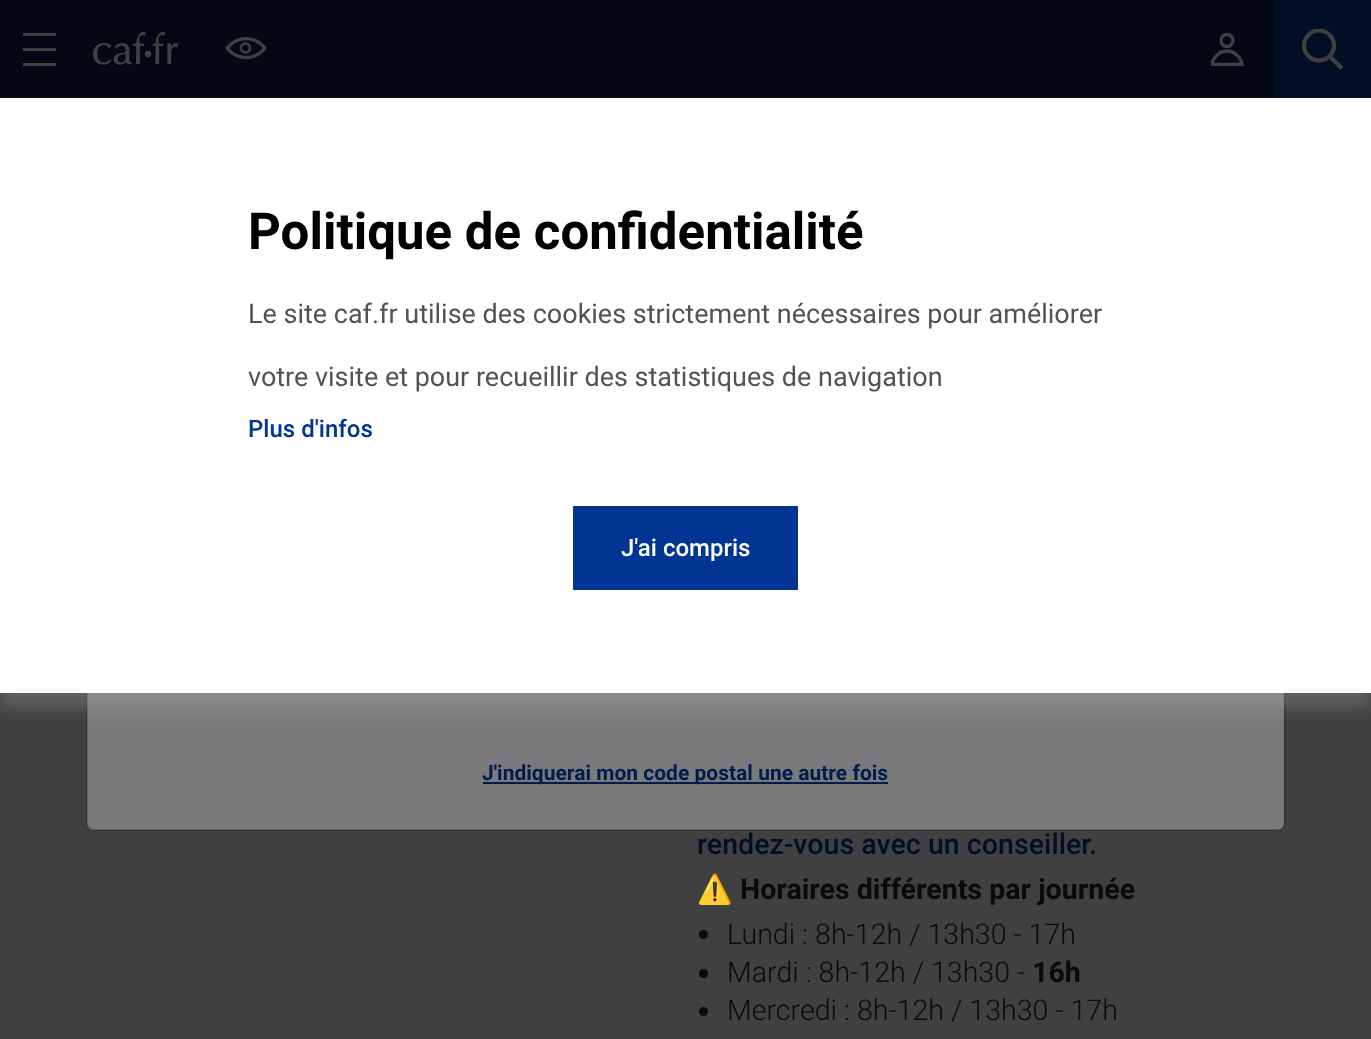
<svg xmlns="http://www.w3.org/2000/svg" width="1371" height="1039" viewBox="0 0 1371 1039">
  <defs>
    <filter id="blur1" x="-50%" y="-200%" width="200%" height="500%"><feGaussianBlur stdDeviation="7.5"/></filter>
    <clipPath id="clip1"><rect x="1211" y="33" width="33" height="33"/></clipPath>
    <clipPath id="clip2"><rect x="1302" y="29" width="42" height="42"/></clipPath>
  </defs>
  <rect width="100%" height="100%" fill="#404040"/>
  <rect x="0" y="0" width="1274" height="98" fill="#030814"/>
  <rect x="1274" y="0" width="97" height="98" fill="#010e25"/>
  <rect x="87" y="210" width="1197" height="620" rx="6" fill="#7a7a7d"/>
  <rect x="87" y="210" width="1198" height="620" rx="7" fill="none" stroke="#000000" stroke-opacity="0.18" stroke-width="2"/>
  <rect x="0" y="113" width="1371" height="595" fill="#bfbfbf" fill-opacity="0.25" filter="url(#blur1)"/>
  <rect x="0" y="98" width="1371" height="595" fill="#ffffff"/>
  <text x="248" y="249" font-family="Roboto" font-size="51" font-weight="bold" fill="#000000">Politique de confidentialité</text>
  <text x="248" y="323" font-family="Roboto" font-size="27" fill="#525252">Le site caf.fr utilise des cookies strictement nécessaires pour améliorer</text>
  <text x="248" y="386" font-family="Roboto" font-size="27" fill="#525252">votre visite et pour recueillir des statistiques de navigation</text>
  <text x="248" y="437" font-family="Roboto" font-size="24" font-weight="500" fill="#013593">Plus d'infos</text>
  <rect x="573" y="506" width="225" height="84" fill="#013593"/>
  <text x="621" y="556" font-family="Roboto" font-size="24" font-weight="500" fill="#ffffff">J'ai compris</text>
  <rect x="23" y="33" width="33" height="3" fill="#404040"/>
  <rect x="23" y="48" width="33" height="3" fill="#404040"/>
  <rect x="23" y="63" width="33" height="3" fill="#404040"/>
  <image x="93" y="32" width="85" height="33" href="img1.png"/>
  <image x="225" y="36" width="42" height="24" href="img2.png"/>
  <g clip-path="url(#clip1)">
    <path d="M1227 51C1234.5 51 1241 57 1242 64.5H1212C1213 57 1219.5 51 1227 51Z" fill="none" stroke="#404040" stroke-width="3.3"/>
  </g>
  <circle cx="1227" cy="40.5" r="6" fill="none" stroke="#404040" stroke-width="3.3"/>
  <g clip-path="url(#clip2)">
    <circle cx="1319" cy="45.5" r="15" fill="none" stroke="#404040" stroke-width="4.2"/>
  </g>
  <path d="M1331 57.5L1342 68.5" fill="none" stroke="#404040" stroke-width="4.2"/>
  <rect x="483" y="782" width="405" height="2" fill="#011b4a"/>
  <text x="482" y="780" font-family="Roboto" font-size="21" font-weight="bold" fill="#011b4a">J'indiquerai mon code postal une autre fois</text>
  <text x="697" y="854" font-family="Roboto" font-size="28.6" font-weight="500" fill="#010e25">rendez-vous avec un conseiller.</text>
  <text x="697" y="899" font-family="Noto Color Emoji" font-size="28.6" font-weight="bold" fill="#090a0b">⚠️</text>
  <text x="740" y="899" font-family="Roboto" font-size="28.6" font-weight="bold" fill="#090a0b">Horaires différents par journée</text>
  <circle cx="703.5" cy="934.5" r="4.5" fill="#090a0b"/>
  <text x="727" y="944" font-family="Roboto" font-size="28.6" font-weight="300" fill="#090a0b">Lundi : 8h-12h / 13h30 - 17h</text>
  <circle cx="703.5" cy="973.5" r="4.5" fill="#090a0b"/>
  <text x="727" y="982" font-family="Roboto" font-size="28.6" font-weight="300" fill="#090a0b">Mardi : 8h-12h / 13h30 -</text>
  <text x="1032" y="982" font-family="Roboto" font-size="28.6" font-weight="bold" fill="#090a0b">16h</text>
  <circle cx="703.5" cy="1011.5" r="4.5" fill="#090a0b"/>
  <text x="727" y="1020" font-family="Roboto" font-size="28.6" font-weight="300" fill="#090a0b">Mercredi : 8h-12h / 13h30 - 17h</text>
</svg>
